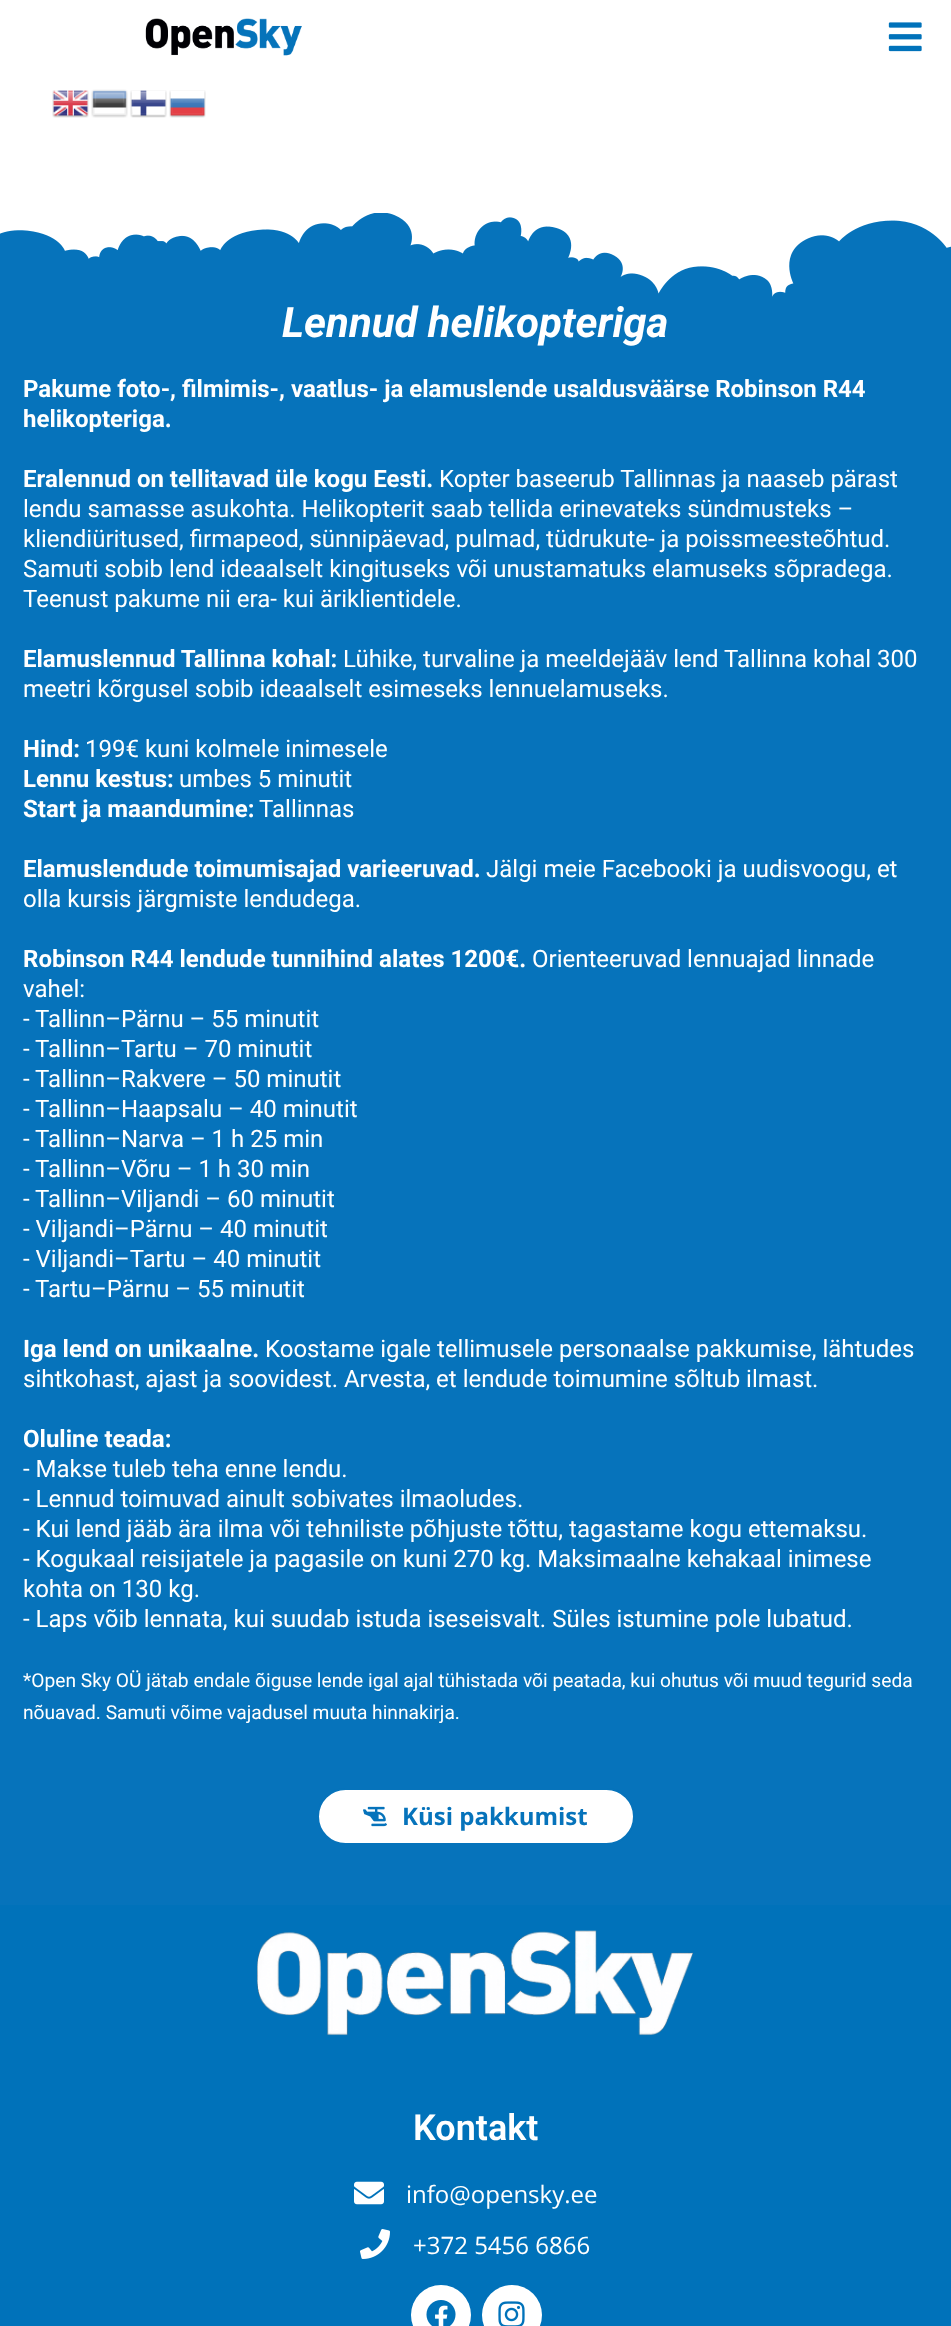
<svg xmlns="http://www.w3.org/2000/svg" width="951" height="2326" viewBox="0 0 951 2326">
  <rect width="100%" height="100%" fill="#ffffff"/>
  <image x="145" y="18" width="157" height="38" href="img1.png"/>
  <image x="888" y="22" width="34" height="30" href="img2.png"/>
  <image x="52" y="90" width="37" height="28" href="img3.png"/>
  <image x="91" y="89" width="37" height="29" href="img4.png"/>
  <image x="130" y="90" width="37" height="28" href="img5.png"/>
  <image x="169" y="90" width="37" height="28" href="img6.png"/>
  <rect x="0" y="213" width="951" height="1692" fill="#0673bb"/>
  <image x="0" y="213" width="951" height="84" href="img7.png"/>
  <text x="282" y="337" font-family="Roboto" font-size="42" font-weight="bold" font-style="italic" fill="#ffffff">Lennud helikopteriga</text>
  <text x="23" y="397" font-family="Roboto" font-size="24" font-weight="bold" fill="#ffffff">Pakume foto-, filmimis-, vaatlus- ja elamuslende usaldusväärse Robinson R44</text>
  <text x="23" y="427" font-family="Roboto" font-size="24" font-weight="bold" fill="#ffffff">helikopteriga.</text>
  <text x="23" y="487" font-family="Roboto" font-size="24" font-weight="bold" fill="#ffffff">Eralennud on tellitavad üle kogu Eesti.</text>
  <text x="439" y="487" font-family="Roboto" font-size="24" fill="#ffffff">Kopter baseerub Tallinnas ja naaseb pärast</text>
  <text x="23" y="517" font-family="Roboto" font-size="24" fill="#ffffff">lendu samasse asukohta. Helikopterit saab tellida erinevateks sündmusteks –</text>
  <text x="23" y="547" font-family="Roboto" font-size="24" fill="#ffffff">kliendiüritused, firmapeod, sünnipäevad, pulmad, tüdrukute- ja poissmeesteõhtud.</text>
  <text x="23" y="577" font-family="Roboto" font-size="24" fill="#ffffff">Samuti sobib lend ideaalselt kingituseks või unustamatuks elamuseks sõpradega.</text>
  <text x="23" y="607" font-family="Roboto" font-size="24" fill="#ffffff">Teenust pakume nii era- kui äriklientidele.</text>
  <text x="23" y="667" font-family="Roboto" font-size="24" font-weight="bold" fill="#ffffff">Elamuslennud Tallinna kohal:</text>
  <text x="343" y="667" font-family="Roboto" font-size="24" fill="#ffffff">Lühike, turvaline ja meeldejääv lend Tallinna kohal 300</text>
  <text x="23" y="697" font-family="Roboto" font-size="24" fill="#ffffff">meetri kõrgusel sobib ideaalselt esimeseks lennuelamuseks.</text>
  <text x="23" y="757" font-family="Roboto" font-size="24" font-weight="bold" fill="#ffffff">Hind:</text>
  <text x="85" y="757" font-family="Roboto" font-size="24" fill="#ffffff">199€ kuni kolmele inimesele</text>
  <text x="23" y="787" font-family="Roboto" font-size="24" font-weight="bold" fill="#ffffff">Lennu kestus:</text>
  <text x="179" y="787" font-family="Roboto" font-size="24" fill="#ffffff">umbes 5 minutit</text>
  <text x="23" y="817" font-family="Roboto" font-size="24" font-weight="bold" fill="#ffffff">Start ja maandumine:</text>
  <text x="259" y="817" font-family="Roboto" font-size="24" fill="#ffffff">Tallinnas</text>
  <text x="23" y="877" font-family="Roboto" font-size="24" font-weight="bold" fill="#ffffff">Elamuslendude toimumisajad varieeruvad.</text>
  <text x="486" y="877" font-family="Roboto" font-size="24" fill="#ffffff">Jälgi meie Facebooki ja uudisvoogu, et</text>
  <text x="23" y="907" font-family="Roboto" font-size="24" fill="#ffffff">olla kursis järgmiste lendudega.</text>
  <text x="23" y="967" font-family="Roboto" font-size="24" font-weight="bold" fill="#ffffff">Robinson R44 lendude tunnihind alates 1200€.</text>
  <text x="532" y="967" font-family="Roboto" font-size="24" fill="#ffffff">Orienteeruvad lennuajad linnade</text>
  <text x="23" y="997" font-family="Roboto" font-size="24" fill="#ffffff">vahel:</text>
  <text x="23" y="1027" font-family="Roboto" font-size="24" fill="#ffffff">- Tallinn–Pärnu – 55 minutit</text>
  <text x="23" y="1057" font-family="Roboto" font-size="24" fill="#ffffff">- Tallinn–Tartu – 70 minutit</text>
  <text x="23" y="1087" font-family="Roboto" font-size="24" fill="#ffffff">- Tallinn–Rakvere – 50 minutit</text>
  <text x="23" y="1117" font-family="Roboto" font-size="24" fill="#ffffff">- Tallinn–Haapsalu – 40 minutit</text>
  <text x="23" y="1147" font-family="Roboto" font-size="24" fill="#ffffff">- Tallinn–Narva – 1 h 25 min</text>
  <text x="23" y="1177" font-family="Roboto" font-size="24" fill="#ffffff">- Tallinn–Võru – 1 h 30 min</text>
  <text x="23" y="1207" font-family="Roboto" font-size="24" fill="#ffffff">- Tallinn–Viljandi – 60 minutit</text>
  <text x="23" y="1237" font-family="Roboto" font-size="24" fill="#ffffff">- Viljandi–Pärnu – 40 minutit</text>
  <text x="23" y="1267" font-family="Roboto" font-size="24" fill="#ffffff">- Viljandi–Tartu – 40 minutit</text>
  <text x="23" y="1297" font-family="Roboto" font-size="24" fill="#ffffff">- Tartu–Pärnu – 55 minutit</text>
  <text x="23" y="1357" font-family="Roboto" font-size="24" font-weight="bold" fill="#ffffff">Iga lend on unikaalne.</text>
  <text x="265" y="1357" font-family="Roboto" font-size="24" fill="#ffffff">Koostame igale tellimusele personaalse pakkumise, lähtudes</text>
  <text x="23" y="1387" font-family="Roboto" font-size="24" fill="#ffffff">sihtkohast, ajast ja soovidest. Arvesta, et lendude toimumine sõltub ilmast.</text>
  <text x="23" y="1447" font-family="Roboto" font-size="24" font-weight="bold" fill="#ffffff">Oluline teada:</text>
  <text x="23" y="1477" font-family="Roboto" font-size="24" fill="#ffffff">- Makse tuleb teha enne lendu.</text>
  <text x="23" y="1507" font-family="Roboto" font-size="24" fill="#ffffff">- Lennud toimuvad ainult sobivates ilmaoludes.</text>
  <text x="23" y="1537" font-family="Roboto" font-size="24" fill="#ffffff">- Kui lend jääb ära ilma või tehniliste põhjuste tõttu, tagastame kogu ettemaksu.</text>
  <text x="23" y="1567" font-family="Roboto" font-size="24" fill="#ffffff">- Kogukaal reisijatele ja pagasile on kuni 270 kg. Maksimaalne kehakaal inimese</text>
  <text x="23" y="1597" font-family="Roboto" font-size="24" fill="#ffffff">kohta on 130 kg.</text>
  <text x="23" y="1627" font-family="Roboto" font-size="24" fill="#ffffff">- Laps võib lennata, kui suudab istuda iseseisvalt. Süles istumine pole lubatud.</text>
  <text x="23" y="1687" font-family="Roboto" font-size="19.2" fill="#ffffff">*Open Sky OÜ jätab endale õiguse lende igal ajal tühistada või peatada, kui ohutus või muud tegurid seda</text>
  <text x="23" y="1719" font-family="Roboto" font-size="19.2" fill="#ffffff">nõuavad. Samuti võime vajadusel muuta hinnakirja.</text>
  <rect x="318" y="1789" width="316" height="55" rx="27.5" fill="#ffffff" stroke="#0673bb" stroke-width="2"/>
  <image x="363" y="1806" width="24" height="21" href="img8.png"/>
  <text x="402" y="1825" font-family="Open Sans" font-size="24" font-weight="bold" fill="#0673bb">Küsi pakkumist</text>
  <rect x="0" y="1905" width="951" height="421" fill="#0072ba"/>
  <image x="257" y="1930" width="436" height="106" href="img9.png"/>
  <text x="413" y="2140" font-family="Roboto" font-size="36" font-weight="600" fill="#ffffff">Kontakt</text>
  <image x="354" y="2181" width="30" height="24" href="img10.png"/>
  <text x="406" y="2203" font-family="Open Sans" font-size="24" fill="#ffffff">info@opensky.ee</text>
  <image x="360" y="2229" width="30" height="30" href="img11.png"/>
  <text x="413" y="2254" font-family="Open Sans" font-size="24" fill="#ffffff">+372 5456 6866</text>
  <circle cx="441" cy="2315" r="30" fill="#ffffff"/>
  <image x="426" y="2300" width="30" height="26" href="img12.png"/>
  <circle cx="512" cy="2315" r="30" fill="#ffffff"/>
  <image x="498" y="2301" width="27" height="25" href="img13.png"/>
</svg>
